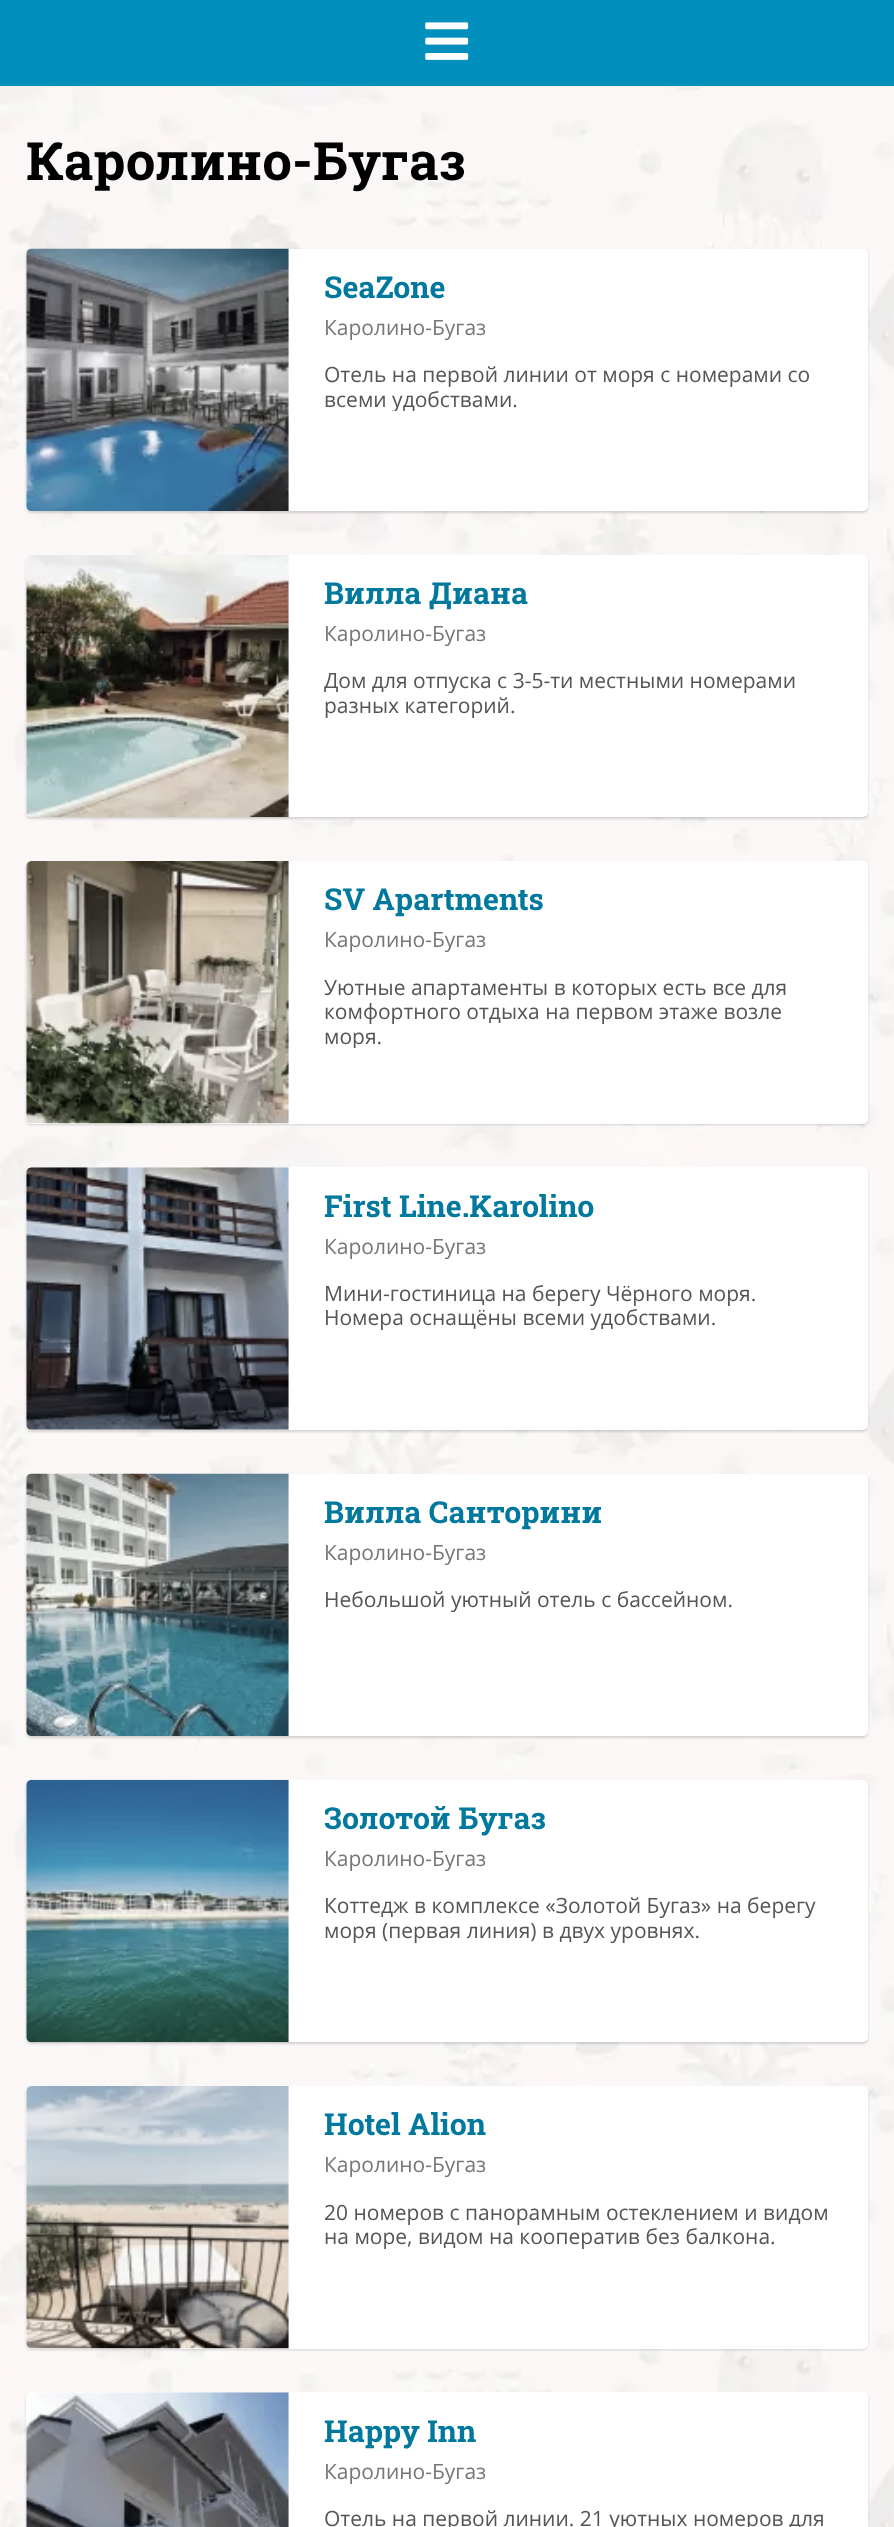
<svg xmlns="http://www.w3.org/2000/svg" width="894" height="2527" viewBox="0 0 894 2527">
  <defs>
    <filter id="blur1" x="-50%" y="-200%" width="200%" height="500%"><feGaussianBlur stdDeviation="1"/></filter>
    <clipPath id="clip1"><rect x="324" y="362" width="509" height="49"/></clipPath>
    <clipPath id="clip2"><rect x="324" y="669" width="509" height="49"/></clipPath>
    <clipPath id="clip3"><rect x="324" y="975" width="509" height="73"/></clipPath>
  </defs>
  <rect width="100%" height="100%" fill="#f8f4f0"/>
  <rect x="0" y="0" width="894" height="86" fill="#0190bd"/>
  <image x="425" y="22" width="44" height="38" href="img1.png"/>
  <image x="0" y="87" width="894" height="2440" href="img2.png"/>
  <text x="26" y="180" font-family="Roboto Slab" font-size="52.75" font-weight="bold" fill="#000000">Каролино-Бугаз</text>
  <rect x="26" y="250" width="842" height="263" rx="5" fill="#000000" fill-opacity="0.15" filter="url(#blur1)"/>
  <rect x="26" y="249" width="842" height="262" rx="5" fill="#ffffff"/>
  <image x="26" y="248" width="263" height="263" href="img3.png"/>
  <text x="324" y="298" font-family="Roboto Slab" font-size="30.25" font-weight="bold" fill="#01789d">SeaZone</text>
  <text x="324" y="335" font-family="Open Sans" font-size="21" fill="#777777">Каролино-Бугаз</text>
  <text x="324" y="382" font-family="Open Sans" font-size="21" fill="#555555">Отель на первой линии от моря с номерами со</text>
  <g clip-path="url(#clip1)">
    <text x="324" y="407" font-family="Open Sans" font-size="21" fill="#555555">всеми удобствами.</text>
  </g>
  <rect x="26" y="557" width="842" height="262" rx="5" fill="#000000" fill-opacity="0.15" filter="url(#blur1)"/>
  <rect x="26" y="555" width="842" height="262" rx="5" fill="#ffffff"/>
  <image x="26" y="555" width="263" height="263" href="img4.png"/>
  <text x="324" y="604" font-family="Roboto Slab" font-size="30.25" font-weight="bold" fill="#01789d">Вилла Диана</text>
  <text x="324" y="641" font-family="Open Sans" font-size="21" fill="#777777">Каролино-Бугаз</text>
  <g clip-path="url(#clip2)">
    <text x="324" y="688" font-family="Open Sans" font-size="21" fill="#555555">Дом для отпуска с 3-5-ти местными номерами</text>
  </g>
  <text x="324" y="713" font-family="Open Sans" font-size="21" fill="#555555">разных категорий.</text>
  <rect x="26" y="863" width="842" height="262" rx="5" fill="#000000" fill-opacity="0.15" filter="url(#blur1)"/>
  <rect x="26" y="861" width="842" height="263" rx="5" fill="#ffffff"/>
  <image x="26" y="861" width="263" height="263" href="img5.png"/>
  <text x="324" y="910" font-family="Roboto Slab" font-size="30.25" font-weight="bold" fill="#01789d">SV Apartments</text>
  <text x="324" y="947" font-family="Open Sans" font-size="21" fill="#777777">Каролино-Бугаз</text>
  <text x="324" y="995" font-family="Open Sans" font-size="21" fill="#555555">Уютные апартаменты в которых есть все для</text>
  <text x="324" y="1019" font-family="Open Sans" font-size="21" fill="#555555">комфортного отдыха на первом этаже возле</text>
  <g clip-path="url(#clip3)">
    <text x="324" y="1044" font-family="Open Sans" font-size="21" fill="#555555">моря.</text>
  </g>
  <rect x="26" y="1169" width="842" height="263" rx="5" fill="#000000" fill-opacity="0.15" filter="url(#blur1)"/>
  <rect x="26" y="1167" width="842" height="263" rx="5" fill="#ffffff"/>
  <image x="26" y="1167" width="263" height="263" href="img6.png"/>
  <text x="324" y="1217" font-family="Roboto Slab" font-size="30.25" font-weight="bold" fill="#01789d">First Line.Karolino</text>
  <text x="324" y="1254" font-family="Open Sans" font-size="21" fill="#777777">Каролино-Бугаз</text>
  <text x="324" y="1301" font-family="Open Sans" font-size="21" fill="#555555">Мини-гостиница на берегу Чёрного моря.</text>
  <text x="324" y="1325" font-family="Open Sans" font-size="21" fill="#555555">Номера оснащёны всеми удобствами.</text>
  <rect x="26" y="1475" width="842" height="263" rx="5" fill="#000000" fill-opacity="0.15" filter="url(#blur1)"/>
  <rect x="26" y="1474" width="842" height="262" rx="5" fill="#ffffff"/>
  <image x="26" y="1473" width="263" height="263" href="img7.png"/>
  <text x="324" y="1523" font-family="Roboto Slab" font-size="30.25" font-weight="bold" fill="#01789d">Вилла Санторини</text>
  <text x="324" y="1560" font-family="Open Sans" font-size="21" fill="#777777">Каролино-Бугаз</text>
  <text x="324" y="1607" font-family="Open Sans" font-size="21" fill="#555555">Небольшой уютный отель с бассейном.</text>
  <rect x="26" y="1782" width="842" height="262" rx="5" fill="#000000" fill-opacity="0.15" filter="url(#blur1)"/>
  <rect x="26" y="1780" width="842" height="262" rx="5" fill="#ffffff"/>
  <image x="26" y="1779" width="263" height="264" href="img8.png"/>
  <text x="324" y="1829" font-family="Roboto Slab" font-size="30.25" font-weight="bold" fill="#01789d">Золотой Бугаз</text>
  <text x="324" y="1866" font-family="Open Sans" font-size="21" fill="#777777">Каролино-Бугаз</text>
  <text x="324" y="1913" font-family="Open Sans" font-size="21" fill="#555555">Коттедж в комплексе «Золотой Бугаз» на берегу</text>
  <text x="324" y="1938" font-family="Open Sans" font-size="21" fill="#555555">моря (первая линия) в двух уровнях.</text>
  <rect x="26" y="2088" width="842" height="262" rx="5" fill="#000000" fill-opacity="0.15" filter="url(#blur1)"/>
  <rect x="26" y="2086" width="842" height="263" rx="5" fill="#ffffff"/>
  <image x="26" y="2086" width="263" height="263" href="img9.png"/>
  <text x="324" y="2135" font-family="Roboto Slab" font-size="30.25" font-weight="bold" fill="#01789d">Hotel Alion</text>
  <text x="324" y="2172" font-family="Open Sans" font-size="21" fill="#777777">Каролино-Бугаз</text>
  <text x="324" y="2220" font-family="Open Sans" font-size="21" fill="#555555">20 номеров с панорамным остеклением и видом</text>
  <text x="324" y="2244" font-family="Open Sans" font-size="21" fill="#555555">на море, видом на кооператив без балкона.</text>
  <rect x="26" y="2394" width="842" height="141" rx="5" fill="#000000" fill-opacity="0.15" filter="url(#blur1)"/>
  <rect x="26" y="2392" width="842" height="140" rx="5" fill="#ffffff"/>
  <image x="26" y="2392" width="263" height="135" href="img10.png"/>
  <text x="324" y="2442" font-family="Roboto Slab" font-size="30.25" font-weight="bold" fill="#01789d">Happy Inn</text>
  <text x="324" y="2479" font-family="Open Sans" font-size="21" fill="#777777">Каролино-Бугаз</text>
  <text x="324" y="2526" font-family="Open Sans" font-size="21" fill="#555555">Отель на первой линии. 21 уютных номеров для</text>
</svg>
